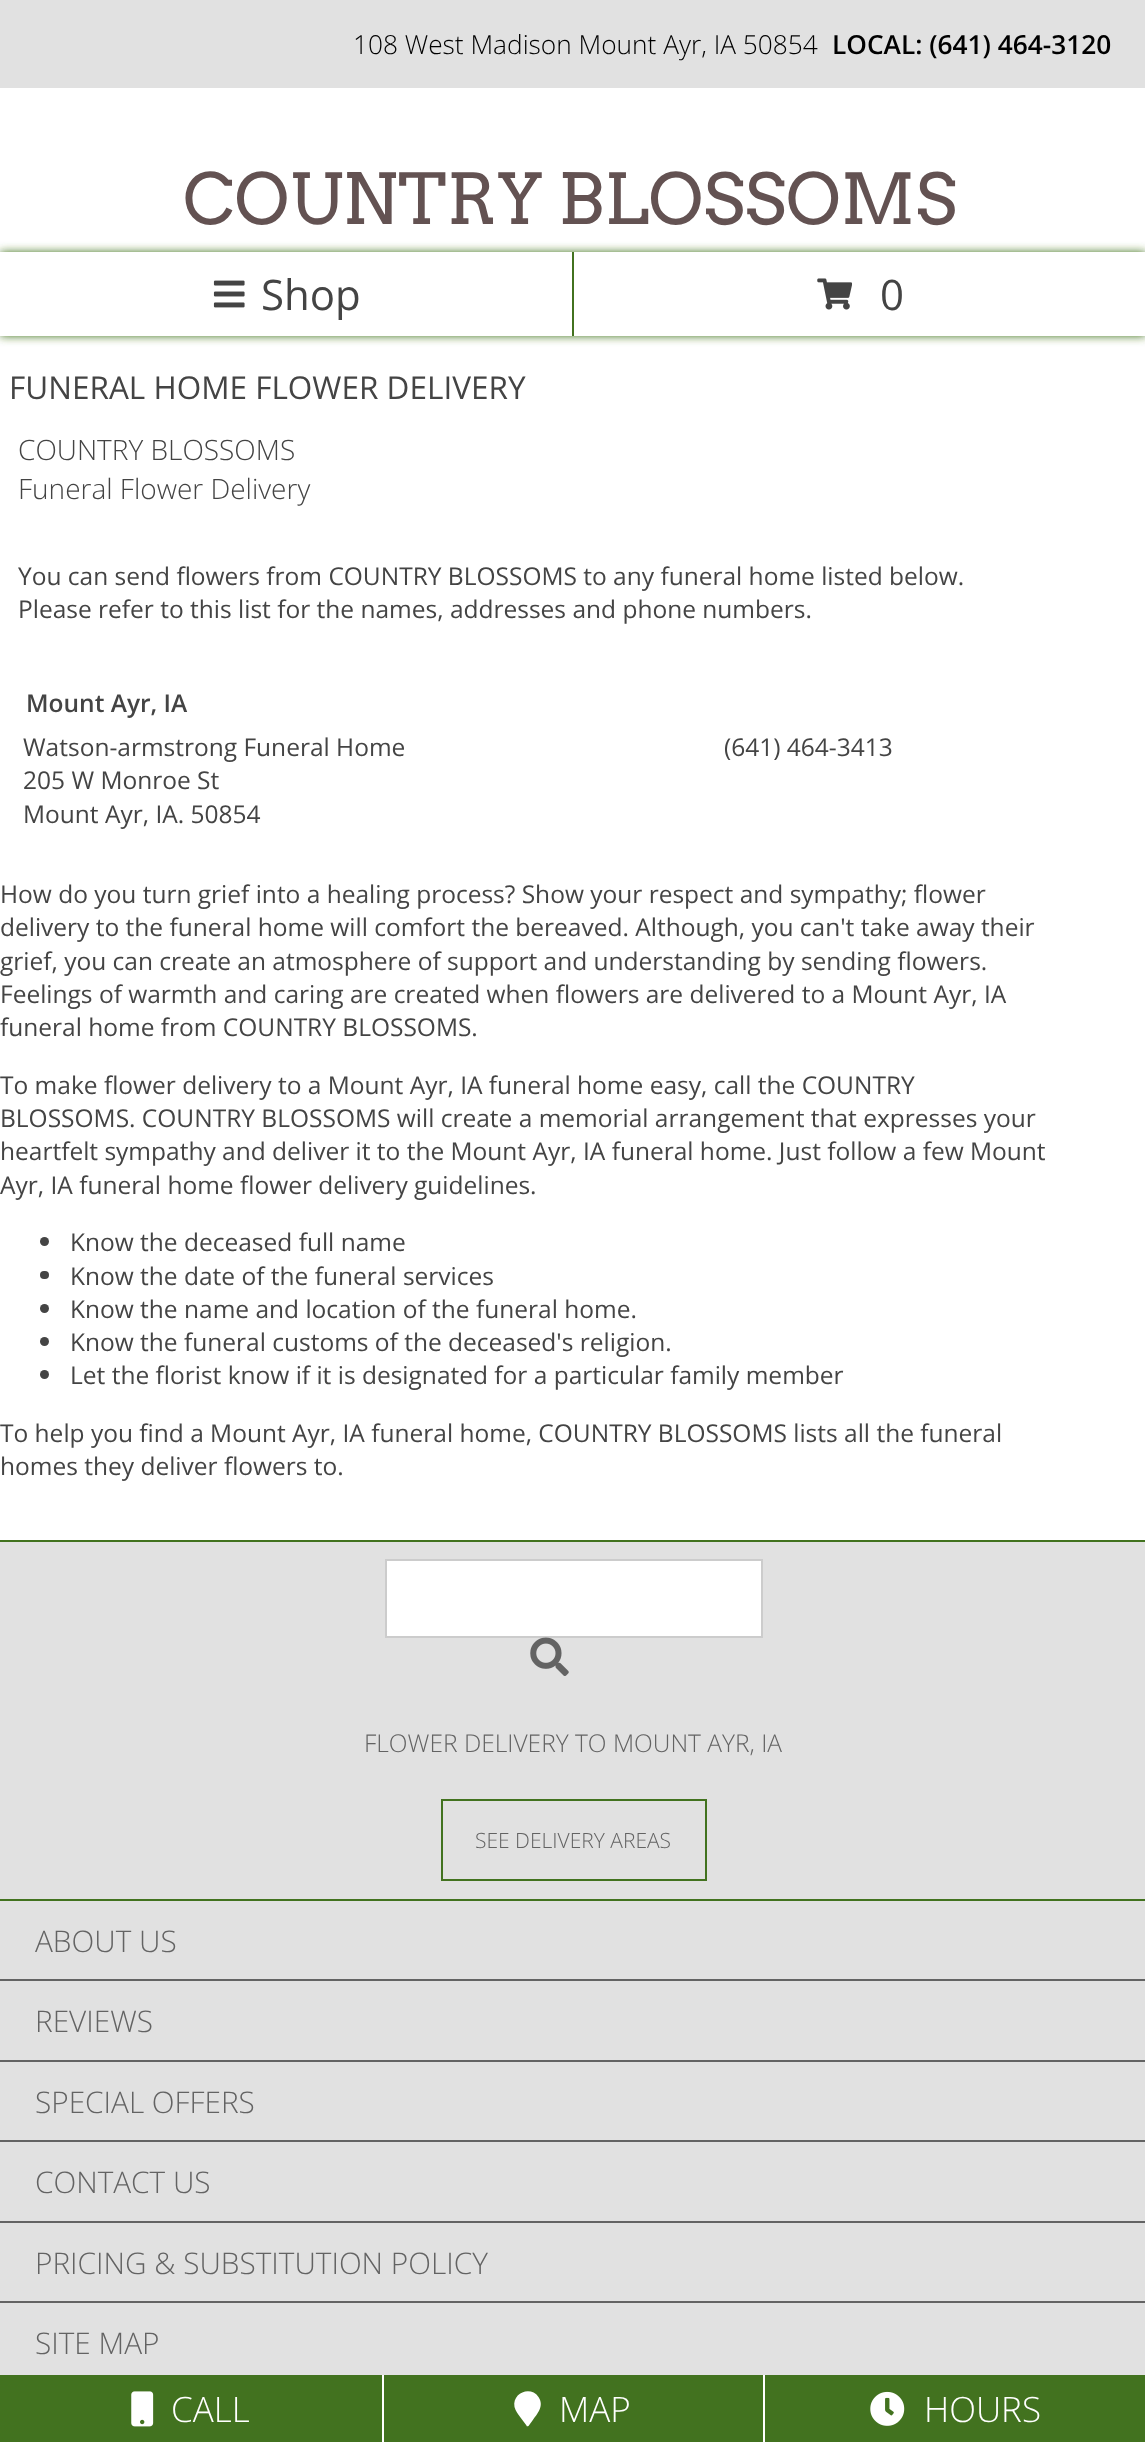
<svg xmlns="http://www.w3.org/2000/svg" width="1145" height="2442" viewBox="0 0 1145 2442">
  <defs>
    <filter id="blur1" x="-50%" y="-200%" width="200%" height="500%"><feGaussianBlur stdDeviation="5"/></filter>
  </defs>
  <rect width="100%" height="100%" fill="#ffffff"/>
  <rect x="0" y="0" width="1145" height="88" fill="#e1e1e1"/>
  <text x="353" y="54" font-family="Open Sans" font-size="26.25" font-weight="300" fill="#000000">108 West Madison Mount Ayr, IA 50854</text>
  <text x="832" y="54" font-family="Open Sans" font-size="26.25" font-weight="600" fill="#000000">LOCAL: (641) 464-3120</text>
  <text x="183" y="224" font-family="Arvo" font-size="70" fill="#635252">COUNTRY BLOSSOMS</text>
  <rect x="0" y="252" width="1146" height="84" fill="#42721f" filter="url(#blur1)"/>
  <rect x="572" y="252" width="2" height="84" fill="#42721f"/>
  <rect x="0" y="252" width="572" height="84" fill="#ffffff"/>
  <image x="213" y="280" width="32" height="28" href="img1.png"/>
  <text x="261" y="310" font-family="Open Sans" font-size="42" fill="#444444">Shop</text>
  <rect x="574" y="252" width="571" height="84" fill="#ffffff"/>
  <image x="817" y="278" width="35" height="32" href="img2.png"/>
  <text x="880" y="310" font-family="Open Sans" font-size="42" fill="#444444">0</text>
  <text x="9" y="399" font-family="Open Sans" font-size="31.5" fill="#444444">FUNERAL HOME FLOWER DELIVERY</text>
  <text x="18" y="460" font-family="Open Sans" font-size="28" font-weight="300" fill="#444444">COUNTRY BLOSSOMS</text>
  <text x="18" y="499" font-family="Open Sans" font-size="28" font-weight="300" fill="#444444">Funeral Flower Delivery</text>
  <text x="18" y="585" font-family="Open Sans" font-size="24.5" fill="#444444">You can send flowers from COUNTRY BLOSSOMS to any funeral home listed below.</text>
  <text x="18" y="618" font-family="Open Sans" font-size="24.5" fill="#444444">Please refer to this list for the names, addresses and phone numbers.</text>
  <text x="26" y="712" font-family="Open Sans" font-size="24.5" font-weight="600" fill="#444444">Mount Ayr, IA</text>
  <text x="23" y="756" font-family="Open Sans" font-size="24.5" fill="#444444">Watson-armstrong Funeral Home</text>
  <text x="23" y="789" font-family="Open Sans" font-size="24.5" fill="#444444">205 W Monroe St</text>
  <text x="23" y="823" font-family="Open Sans" font-size="24.5" fill="#444444">Mount Ayr, IA. 50854</text>
  <text x="724" y="756" font-family="Open Sans" font-size="24.5" fill="#444444">(641) 464-3413</text>
  <text x="0" y="903" font-family="Open Sans" font-size="24.5" fill="#444444">How do you turn grief into a healing process? Show your respect and sympathy; flower</text>
  <text x="0" y="936" font-family="Open Sans" font-size="24.5" fill="#444444">delivery to the funeral home will comfort the bereaved. Although, you can't take away their</text>
  <text x="0" y="970" font-family="Open Sans" font-size="24.5" fill="#444444">grief, you can create an atmosphere of support and understanding by sending flowers.</text>
  <text x="0" y="1003" font-family="Open Sans" font-size="24.5" fill="#444444">Feelings of warmth and caring are created when flowers are delivered to a Mount Ayr, IA</text>
  <text x="0" y="1036" font-family="Open Sans" font-size="24.5" fill="#444444">funeral home from COUNTRY BLOSSOMS.</text>
  <text x="0" y="1094" font-family="Open Sans" font-size="24.5" fill="#444444">To make flower delivery to a Mount Ayr, IA funeral home easy, call the COUNTRY</text>
  <text x="0" y="1127" font-family="Open Sans" font-size="24.5" fill="#444444">BLOSSOMS. COUNTRY BLOSSOMS will create a memorial arrangement that expresses your</text>
  <text x="0" y="1160" font-family="Open Sans" font-size="24.5" fill="#444444">heartfelt sympathy and deliver it to the Mount Ayr, IA funeral home. Just follow a few Mount</text>
  <text x="0" y="1194" font-family="Open Sans" font-size="24.5" fill="#444444">Ayr, IA funeral home flower delivery guidelines.</text>
  <circle cx="44.5" cy="1241.5" r="4.5" fill="#444444"/>
  <text x="70" y="1251" font-family="Open Sans" font-size="24.5" fill="#444444">Know the deceased full name</text>
  <rect x="40" y="1271" width="9" height="8" rx="4" fill="#444444"/>
  <text x="70" y="1285" font-family="Open Sans" font-size="24.5" fill="#444444">Know the date of the funeral services</text>
  <circle cx="44.5" cy="1308.5" r="4.5" fill="#444444"/>
  <text x="70" y="1318" font-family="Open Sans" font-size="24.5" fill="#444444">Know the name and location of the funeral home.</text>
  <circle cx="44.5" cy="1341.5" r="4.5" fill="#444444"/>
  <text x="70" y="1351" font-family="Open Sans" font-size="24.5" fill="#444444">Know the funeral customs of the deceased's religion.</text>
  <circle cx="44.5" cy="1374.5" r="4.5" fill="#444444"/>
  <text x="70" y="1384" font-family="Open Sans" font-size="24.5" fill="#444444">Let the florist know if it is designated for a particular family member</text>
  <text x="0" y="1442" font-family="Open Sans" font-size="24.5" fill="#444444">To help you find a Mount Ayr, IA funeral home, COUNTRY BLOSSOMS lists all the funeral</text>
  <text x="0" y="1475" font-family="Open Sans" font-size="24.5" fill="#444444">homes they deliver flowers to.</text>
  <rect x="0" y="1542" width="1145" height="357" fill="#e1e1e1"/>
  <rect x="0" y="1540" width="1145" height="2" fill="#42721f"/>
  <rect x="0" y="1899" width="1145" height="2" fill="#42721f"/>
  <rect x="386" y="1560" width="376" height="77" fill="#ffffff" stroke="#cccccc" stroke-width="2"/>
  <image x="530" y="1637" width="39" height="39" href="img3.png"/>
  <text x="364" y="1752" font-family="Open Sans" font-size="24.5" font-weight="300" fill="#636363">FLOWER DELIVERY TO MOUNT AYR, IA</text>
  <rect x="442" y="1800" width="264" height="80" fill="none" stroke="#42721f" stroke-width="2"/>
  <text x="475" y="1848" font-family="Open Sans" font-size="21" font-weight="300" fill="#636363">SEE DELIVERY AREAS</text>
  <rect x="0" y="1901" width="1145" height="474" fill="#e1e1e1"/>
  <rect x="0" y="1979" width="1145" height="2" fill="#636363"/>
  <text x="35" y="1952" font-family="Open Sans" font-size="29.75" font-weight="300" fill="#636363">ABOUT US</text>
  <rect x="0" y="2060" width="1145" height="2" fill="#636363"/>
  <text x="35" y="2032" font-family="Open Sans" font-size="29.75" font-weight="300" fill="#636363">REVIEWS</text>
  <rect x="0" y="2140" width="1145" height="2" fill="#636363"/>
  <text x="35" y="2113" font-family="Open Sans" font-size="29.75" font-weight="300" fill="#636363">SPECIAL OFFERS</text>
  <rect x="0" y="2221" width="1145" height="2" fill="#636363"/>
  <text x="35" y="2193" font-family="Open Sans" font-size="29.75" font-weight="300" fill="#636363">CONTACT US</text>
  <rect x="0" y="2301" width="1145" height="2" fill="#636363"/>
  <text x="35" y="2274" font-family="Open Sans" font-size="29.75" font-weight="300" fill="#636363">PRICING &amp; SUBSTITUTION POLICY</text>
  <text x="35" y="2354" font-family="Open Sans" font-size="29.75" font-weight="300" fill="#636363">SITE MAP</text>
  <rect x="0" y="2375" width="382" height="67" fill="#42721f"/>
  <image x="131" y="2391" width="23" height="36" href="img4.png"/>
  <text x="171" y="2422" font-family="Open Sans" font-size="35" font-weight="300" fill="#ffffff">CALL</text>
  <rect x="384" y="2375" width="379" height="67" fill="#42721f"/>
  <path d="M526.5 2425.5L520.5 2417.5C518.5 2414.5 515.5 2411 514.5 2407C512 2393 530.5 2385.5 538.5 2397C544.5 2406 537.5 2413.5 532.5 2420.5L528.5 2426C527.5 2426.5 526.5 2426.5 526.5 2425.5Z" fill="#ffffff"/>
  <text x="559" y="2422" font-family="Open Sans" font-size="35" font-weight="300" fill="#ffffff">MAP</text>
  <rect x="765" y="2375" width="380" height="67" fill="#42721f"/>
  <image x="870" y="2391" width="35" height="35" href="img5.png"/>
  <text x="924" y="2422" font-family="Open Sans" font-size="35" font-weight="300" fill="#ffffff">HOURS</text>
</svg>
